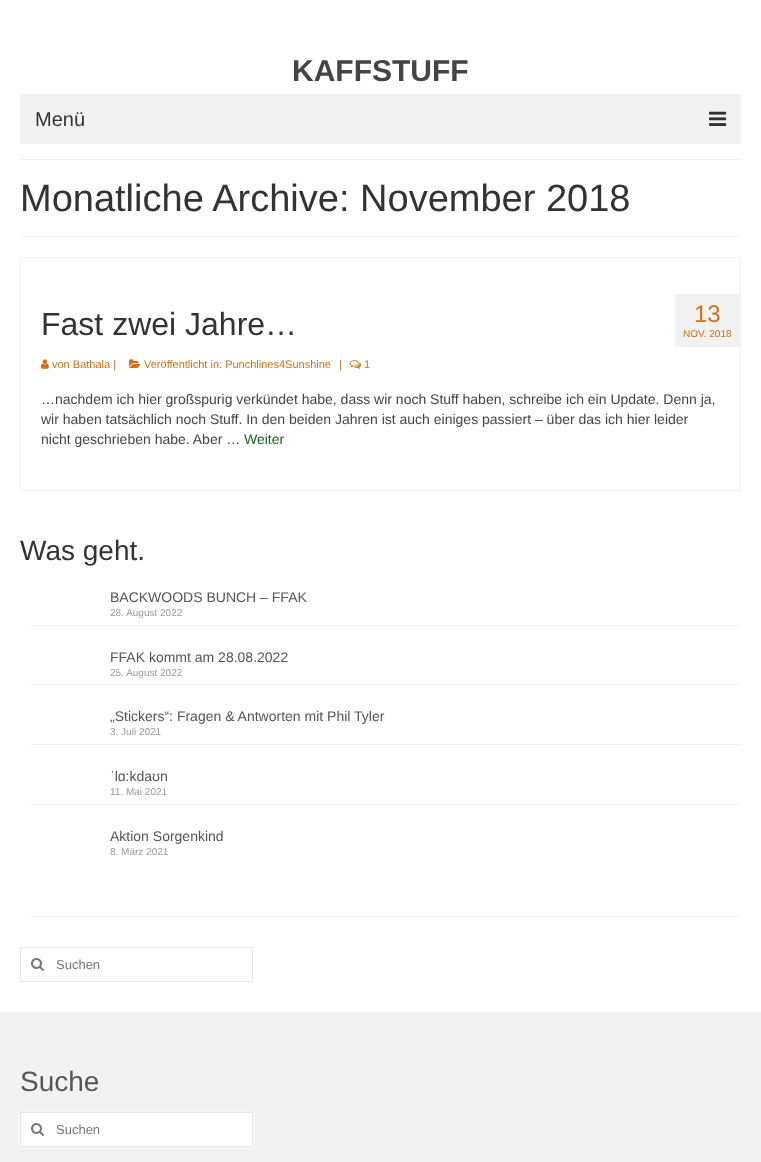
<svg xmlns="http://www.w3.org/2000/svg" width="761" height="1162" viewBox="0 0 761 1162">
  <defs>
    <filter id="blur1" x="-50%" y="-200%" width="200%" height="500%"><feGaussianBlur stdDeviation="1.5"/></filter>
  </defs>
  <rect width="100%" height="100%" fill="#ffffff"/>
  <text x="292" y="81" font-family="Liberation Sans" font-size="30" font-weight="bold" fill="#444444">KAFFSTUFF</text>
  <rect x="20" y="94" width="721" height="50" fill="#f2f2f2"/>
  <text x="35" y="126" font-family="Liberation Sans" font-size="20" fill="#333333">Menü</text>
  <image x="709" y="111" width="18" height="15" href="img1.png"/>
  <rect x="20" y="159" width="721" height="1" fill="#f2f2f2"/>
  <rect x="20" y="236" width="721" height="1" fill="#f2f2f2"/>
  <text x="20" y="211" font-family="Liberation Sans" font-size="38" fill="#333333">Monatliche Archive: November 2018</text>
  <rect x="20.5" y="257.5" width="720" height="233" fill="none" stroke="#f2f2f2"/>
  <text x="41" y="335" font-family="Liberation Sans" font-size="32" fill="#333333">Fast zwei Jahre…</text>
  <image x="41" y="359" width="8" height="10" href="img2.png"/>
  <text x="52" y="368" font-family="Liberation Sans" font-size="11" fill="#d66e13">von Bathala |</text>
  <image x="129" y="359" width="12" height="9" href="img3.png"/>
  <text x="144" y="368" font-family="Liberation Sans" font-size="11" fill="#d66e13">Veröffentlicht in: Punchlines4Sunshine</text>
  <text x="339" y="368" font-family="Liberation Sans" font-size="11" fill="#d66e13">|</text>
  <image x="350" y="360" width="11" height="9" href="img4.png"/>
  <text x="364" y="368" font-family="Liberation Sans" font-size="11" fill="#d66e13">1</text>
  <rect x="675" y="294" width="65" height="53" fill="#f2f2f2"/>
  <text x="694" y="322" font-family="Liberation Sans" font-size="24" fill="#d66e13">13</text>
  <text x="683" y="337" font-family="Liberation Sans" font-size="10" fill="#d66e13">NOV. 2018</text>
  <text x="41" y="404" font-family="Liberation Sans" font-size="14" fill="#444444">…nachdem ich hier großspurig verkündet habe, dass wir noch Stuff haben, schreibe ich ein Update. Denn ja,</text>
  <text x="41" y="424" font-family="Liberation Sans" font-size="14" fill="#444444">wir haben tatsächlich noch Stuff. In den beiden Jahren ist auch einiges passiert – über das ich hier leider</text>
  <text x="41" y="444" font-family="Liberation Sans" font-size="14" fill="#444444">nicht geschrieben habe. Aber …</text>
  <text x="244" y="444" font-family="Liberation Sans" font-size="14" fill="#1b6620">Weiter</text>
  <text x="20" y="560" font-family="Liberation Sans" font-size="28" fill="#333333">Was geht.</text>
  <rect x="30" y="625" width="711" height="1" fill="#f2f2f2"/>
  <text x="110" y="602" font-family="Liberation Sans" font-size="14" fill="#555555">BACKWOODS BUNCH – FFAK</text>
  <text x="110" y="616" font-family="Liberation Sans" font-size="10" fill="#999999">28. August 2022</text>
  <rect x="30" y="684" width="711" height="1" fill="#f2f2f2"/>
  <text x="110" y="662" font-family="Liberation Sans" font-size="14" fill="#555555">FFAK kommt am 28.08.2022</text>
  <text x="110" y="676" font-family="Liberation Sans" font-size="10" fill="#999999">25. August 2022</text>
  <rect x="30" y="744" width="711" height="1" fill="#f2f2f2"/>
  <text x="110" y="721" font-family="Liberation Sans" font-size="14" fill="#555555">„Stickers“: Fragen &amp; Antworten mit Phil Tyler</text>
  <text x="110" y="735" font-family="Liberation Sans" font-size="10" fill="#999999">3. Juli 2021</text>
  <rect x="30" y="804" width="711" height="1" fill="#f2f2f2"/>
  <text x="110" y="781" font-family="Liberation Sans" font-size="14" fill="#555555">ˈlɑ:kdaʊn</text>
  <text x="110" y="795" font-family="Liberation Sans" font-size="10" fill="#999999">11. Mai 2021</text>
  <rect x="30" y="916" width="711" height="1" fill="#f2f2f2"/>
  <text x="110" y="841" font-family="Liberation Sans" font-size="14" fill="#555555">Aktion Sorgenkind</text>
  <text x="110" y="855" font-family="Liberation Sans" font-size="10" fill="#999999">8. März 2021</text>
  <rect x="20.5" y="947.5" width="232" height="34" fill="none" stroke="#e7e7e7"/>
  <image x="31" y="958" width="13" height="13" href="img5.png"/>
  <text x="56" y="969" font-family="Liberation Sans" font-size="13" fill="#757575">Suchen</text>
  <rect x="0" y="1012" width="761" height="150" fill="#f2f2f2"/>
  <text x="20" y="1091" font-family="Liberation Sans" font-size="28" fill="#555555">Suche</text>
  <rect x="20" y="1112" width="233" height="35" fill="#ffffff" filter="url(#blur1)"/>
  <rect x="20.5" y="1112.5" width="232" height="34" fill="#ffffff" stroke="#e7e7e7"/>
  <image x="31" y="1123" width="13" height="13" href="img5.png"/>
  <text x="56" y="1134" font-family="Liberation Sans" font-size="13" fill="#757575">Suchen</text>
</svg>
